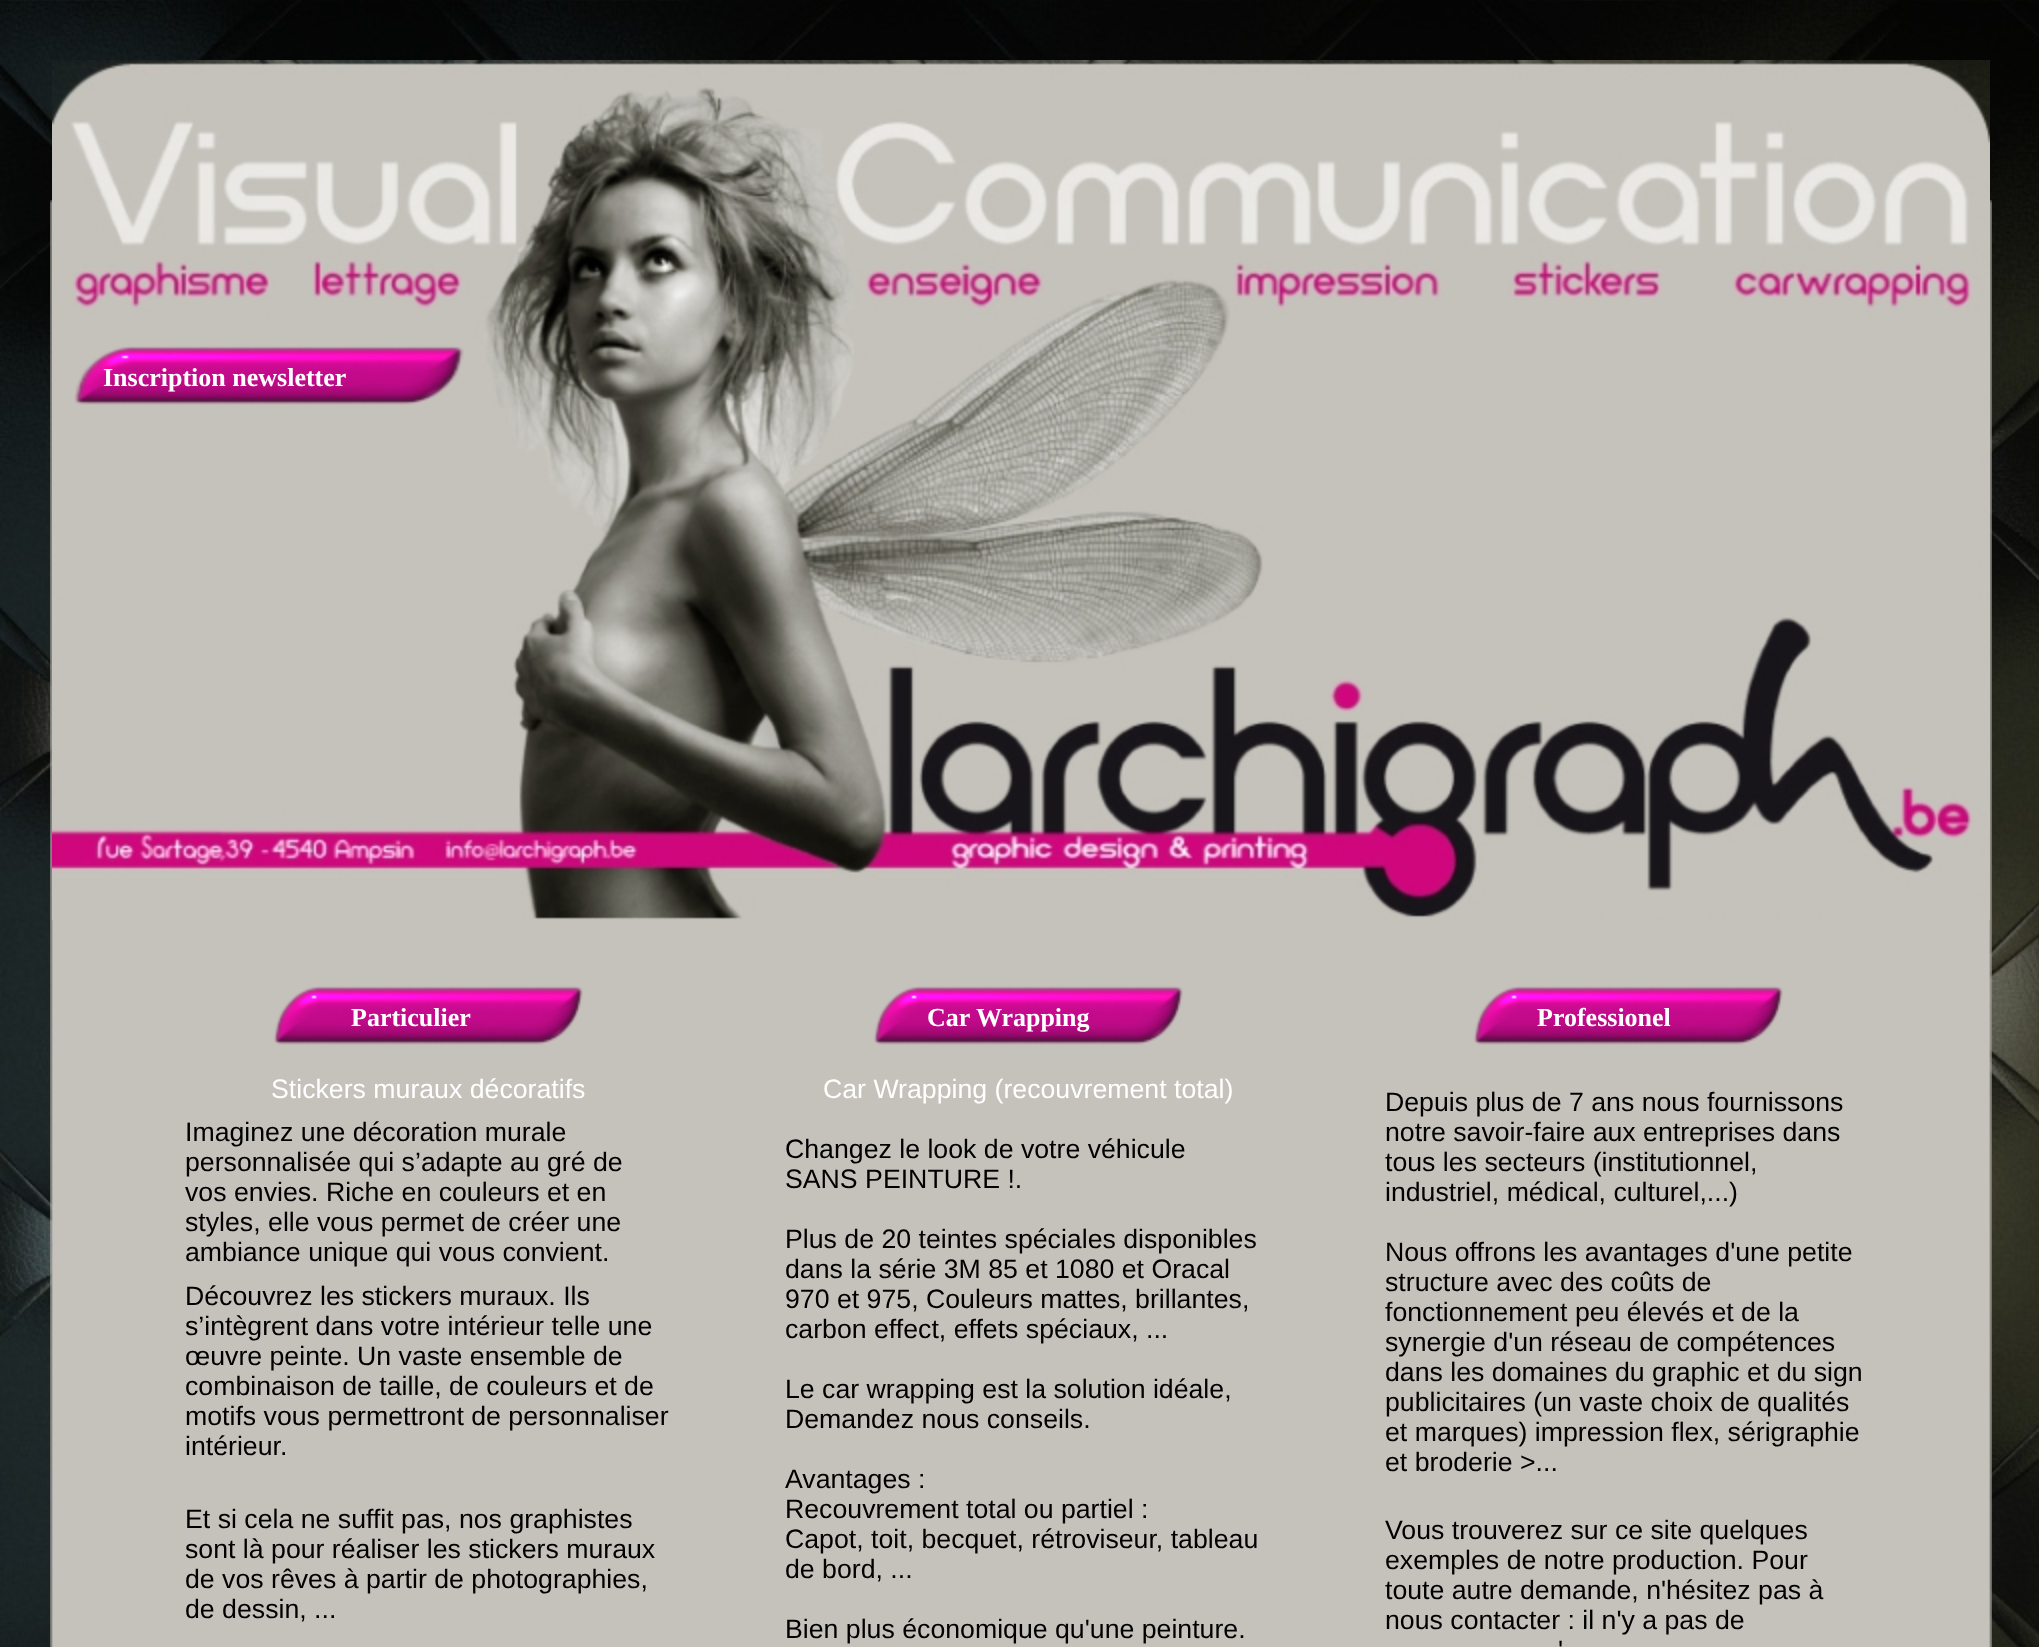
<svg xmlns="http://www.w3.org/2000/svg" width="2039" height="1647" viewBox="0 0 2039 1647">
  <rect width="100%" height="100%" fill="#ffffff"/>
  <image x="0" y="0" width="2039" height="1647" href="img1.png"/>
  <image x="50" y="200" width="1942" height="1447" href="img3.png"/>
  <image x="52" y="60" width="1938" height="860" href="img2.png"/>
  <image x="74" y="346" width="390" height="59" href="img4.png"/>
  <text x="103" y="386" font-family="Liberation Serif" font-size="26" font-weight="bold" fill="#ffffff">Inscription newsletter</text>
  <image x="273" y="986" width="310" height="59" href="img5.png"/>
  <text x="351" y="1026" font-family="Liberation Serif" font-size="26" font-weight="bold" fill="#ffffff">Particulier</text>
  <image x="873" y="986" width="310" height="59" href="img5.png"/>
  <text x="927" y="1026" font-family="Liberation Serif" font-size="26" font-weight="bold" fill="#ffffff">Car Wrapping</text>
  <image x="1473" y="986" width="310" height="59" href="img5.png"/>
  <text x="1537" y="1026" font-family="Liberation Serif" font-size="26" font-weight="bold" fill="#ffffff">Professionel</text>
  <text x="271" y="1098" font-family="Liberation Sans" font-size="26.7" fill="#ffffff">Stickers muraux décoratifs</text>
  <text x="185" y="1141" font-family="Liberation Sans" font-size="26.7" fill="#000000">Imaginez une décoration murale</text>
  <text x="185" y="1171" font-family="Liberation Sans" font-size="26.7" fill="#000000">personnalisée qui s’adapte au gré de</text>
  <text x="185" y="1201" font-family="Liberation Sans" font-size="26.7" fill="#000000">vos envies. Riche en couleurs et en</text>
  <text x="185" y="1231" font-family="Liberation Sans" font-size="26.7" fill="#000000">styles, elle vous permet de créer une</text>
  <text x="185" y="1261" font-family="Liberation Sans" font-size="26.7" fill="#000000">ambiance unique qui vous convient.</text>
  <text x="185" y="1305" font-family="Liberation Sans" font-size="26.7" fill="#000000">Découvrez les stickers muraux. Ils</text>
  <text x="185" y="1335" font-family="Liberation Sans" font-size="26.7" fill="#000000">s’intègrent dans votre intérieur telle une</text>
  <text x="185" y="1365" font-family="Liberation Sans" font-size="26.7" fill="#000000">œuvre peinte. Un vaste ensemble de</text>
  <text x="185" y="1395" font-family="Liberation Sans" font-size="26.7" fill="#000000">combinaison de taille, de couleurs et de</text>
  <text x="185" y="1425" font-family="Liberation Sans" font-size="26.7" fill="#000000">motifs vous permettront de personnaliser</text>
  <text x="185" y="1455" font-family="Liberation Sans" font-size="26.7" fill="#000000">intérieur.</text>
  <text x="185" y="1528" font-family="Liberation Sans" font-size="26.7" fill="#000000">Et si cela ne suffit pas, nos graphistes</text>
  <text x="185" y="1558" font-family="Liberation Sans" font-size="26.7" fill="#000000">sont là pour réaliser les stickers muraux</text>
  <text x="185" y="1588" font-family="Liberation Sans" font-size="26.7" fill="#000000">de vos rêves à partir de photographies,</text>
  <text x="185" y="1618" font-family="Liberation Sans" font-size="26.7" fill="#000000">de dessin, ...</text>
  <text x="823" y="1098" font-family="Liberation Sans" font-size="26.7" fill="#ffffff">Car Wrapping (recouvrement total)</text>
  <text x="785" y="1158" font-family="Liberation Sans" font-size="26.7" fill="#000000">Changez le look de votre véhicule</text>
  <text x="785" y="1188" font-family="Liberation Sans" font-size="26.7" fill="#000000">SANS PEINTURE !.</text>
  <text x="785" y="1248" font-family="Liberation Sans" font-size="26.7" fill="#000000">Plus de 20 teintes spéciales disponibles</text>
  <text x="785" y="1278" font-family="Liberation Sans" font-size="26.7" fill="#000000">dans la série 3M 85 et 1080 et Oracal</text>
  <text x="785" y="1308" font-family="Liberation Sans" font-size="26.7" fill="#000000">970 et 975, Couleurs mattes, brillantes,</text>
  <text x="785" y="1338" font-family="Liberation Sans" font-size="26.7" fill="#000000">carbon effect, effets spéciaux, ...</text>
  <text x="785" y="1398" font-family="Liberation Sans" font-size="26.7" fill="#000000">Le car wrapping est la solution idéale,</text>
  <text x="785" y="1428" font-family="Liberation Sans" font-size="26.7" fill="#000000">Demandez nous conseils.</text>
  <text x="785" y="1488" font-family="Liberation Sans" font-size="26.7" fill="#000000">Avantages :</text>
  <text x="785" y="1518" font-family="Liberation Sans" font-size="26.7" fill="#000000">Recouvrement total ou partiel :</text>
  <text x="785" y="1548" font-family="Liberation Sans" font-size="26.7" fill="#000000">Capot, toit, becquet, rétroviseur, tableau</text>
  <text x="785" y="1578" font-family="Liberation Sans" font-size="26.7" fill="#000000">de bord, ...</text>
  <text x="785" y="1638" font-family="Liberation Sans" font-size="26.7" fill="#000000">Bien plus économique qu'une peinture.</text>
  <text x="1385" y="1111" font-family="Liberation Sans" font-size="26.7" fill="#000000">Depuis plus de 7 ans nous fournissons</text>
  <text x="1385" y="1141" font-family="Liberation Sans" font-size="26.7" fill="#000000">notre savoir-faire aux entreprises dans</text>
  <text x="1385" y="1171" font-family="Liberation Sans" font-size="26.7" fill="#000000">tous les secteurs (institutionnel,</text>
  <text x="1385" y="1201" font-family="Liberation Sans" font-size="26.7" fill="#000000">industriel, médical, culturel,...)</text>
  <text x="1385" y="1261" font-family="Liberation Sans" font-size="26.7" fill="#000000">Nous offrons les avantages d'une petite</text>
  <text x="1385" y="1291" font-family="Liberation Sans" font-size="26.7" fill="#000000">structure avec des coûts de</text>
  <text x="1385" y="1321" font-family="Liberation Sans" font-size="26.7" fill="#000000">fonctionnement peu élevés et de la</text>
  <text x="1385" y="1351" font-family="Liberation Sans" font-size="26.7" fill="#000000">synergie d'un réseau de compétences</text>
  <text x="1385" y="1381" font-family="Liberation Sans" font-size="26.7" fill="#000000">dans les domaines du graphic et du sign</text>
  <text x="1385" y="1411" font-family="Liberation Sans" font-size="26.7" fill="#000000">publicitaires (un vaste choix de qualités</text>
  <text x="1385" y="1441" font-family="Liberation Sans" font-size="26.7" fill="#000000">et marques) impression flex, sérigraphie</text>
  <text x="1385" y="1471" font-family="Liberation Sans" font-size="26.7" fill="#000000">et broderie &gt;...</text>
  <text x="1385" y="1539" font-family="Liberation Sans" font-size="26.7" fill="#000000">Vous trouverez sur ce site quelques</text>
  <text x="1385" y="1569" font-family="Liberation Sans" font-size="26.7" fill="#000000">exemples de notre production. Pour</text>
  <text x="1385" y="1599" font-family="Liberation Sans" font-size="26.7" fill="#000000">toute autre demande, n'hésitez pas à</text>
  <text x="1385" y="1629" font-family="Liberation Sans" font-size="26.7" fill="#000000">nous contacter : il n'y a pas de</text>
  <text x="1558" y="1659" font-family="Liberation Sans" font-size="26.7" fill="#000000">'</text>
</svg>
